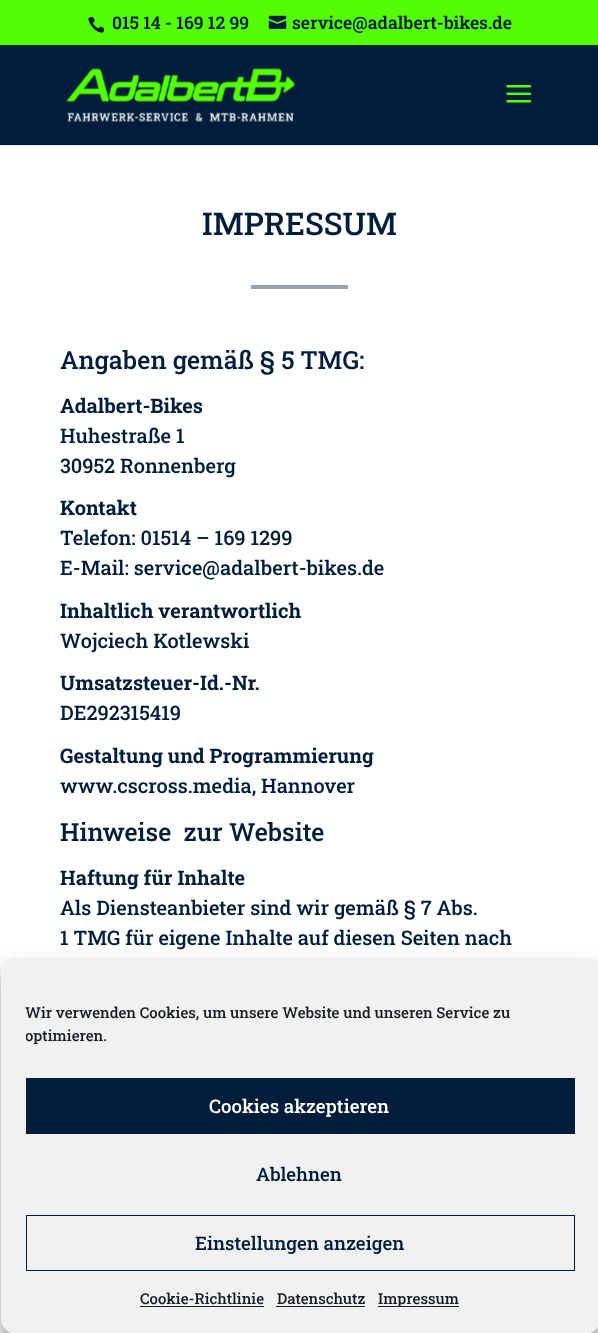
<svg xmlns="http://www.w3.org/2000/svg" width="598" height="1333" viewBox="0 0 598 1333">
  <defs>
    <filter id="blur1" x="-50%" y="-200%" width="200%" height="500%"><feGaussianBlur stdDeviation="4"/></filter>
    <filter id="blur2" x="-50%" y="-200%" width="200%" height="500%"><feGaussianBlur stdDeviation="12.5"/></filter>
    <clipPath id="clip1"><rect x="26" y="1001" width="549" height="52"/></clipPath>
  </defs>
  <rect width="100%" height="100%" fill="#001e3b"/>
  <rect x="0" y="0" width="598" height="45" fill="#55fd04"/>
  <image x="88" y="16" width="17" height="17" href="img1.png"/>
  <text x="112" y="29" font-family="Roboto Slab" font-size="17.5" font-weight="600" fill="#001e3b">015 14 - 169 12 99</text>
  <image x="268" y="15" width="19" height="14" href="img2.png"/>
  <text x="292" y="29" font-family="Roboto Slab" font-size="17.5" font-weight="600" fill="#001e3b">service@adalbert-bikes.de</text>
  <path d="M0 145V146H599V46V145Z" fill="#e6e6e6"/>
  <image x="66" y="68" width="229" height="54" href="img3.png"/>
  <image x="506" y="85" width="26" height="18" href="img4.png"/>
  <rect x="0" y="146" width="598" height="1187" fill="#ffffff"/>
  <text x="202" y="235" font-family="Roboto Slab" font-size="31.25" font-weight="500" fill="#001e3b">IMPRESSUM</text>
  <rect x="251" y="285" width="97" height="4" fill="#96a3af"/>
  <text x="60" y="369" font-family="Roboto Slab" font-size="25" font-weight="500" fill="#001e3b">Angaben gemäß § 5 TMG:</text>
  <text x="60" y="413" font-family="Roboto Slab" font-size="20" font-weight="bold" fill="#001e3b">Adalbert-Bikes</text>
  <text x="60" y="443" font-family="Roboto Slab" font-size="20" font-weight="500" fill="#001e3b">Huhestraße 1</text>
  <text x="60" y="473" font-family="Roboto Slab" font-size="20" font-weight="500" fill="#001e3b">30952 Ronnenberg</text>
  <text x="60" y="515" font-family="Roboto Slab" font-size="20" font-weight="bold" fill="#001e3b">Kontakt</text>
  <text x="60" y="545" font-family="Roboto Slab" font-size="20" font-weight="500" fill="#001e3b">Telefon: 01514 – 169 1299</text>
  <text x="60" y="575" font-family="Roboto Slab" font-size="20" font-weight="500" fill="#001e3b">E-Mail: service@adalbert-bikes.de</text>
  <text x="60" y="618" font-family="Roboto Slab" font-size="20" font-weight="bold" fill="#001e3b">Inhaltlich verantwortlich</text>
  <text x="60" y="648" font-family="Roboto Slab" font-size="20" font-weight="500" fill="#001e3b">Wojciech Kotlewski</text>
  <text x="60" y="690" font-family="Roboto Slab" font-size="20" font-weight="bold" fill="#001e3b">Umsatzsteuer-Id.-Nr.</text>
  <text x="60" y="720" font-family="Roboto Slab" font-size="20" font-weight="500" fill="#001e3b">DE292315419</text>
  <text x="60" y="763" font-family="Roboto Slab" font-size="20" font-weight="bold" fill="#001e3b">Gestaltung und Programmierung</text>
  <text x="60" y="793" font-family="Roboto Slab" font-size="20" font-weight="500" fill="#001e3b">www.cscross.media, Hannover</text>
  <text x="60" y="841" font-family="Roboto Slab" font-size="25" font-weight="500" fill="#001e3b" xml:space="preserve">Hinweise  zur Website</text>
  <text x="60" y="885" font-family="Roboto Slab" font-size="20" font-weight="bold" fill="#001e3b">Haftung für Inhalte</text>
  <text x="60" y="915" font-family="Roboto Slab" font-size="20" font-weight="500" fill="#001e3b">Als Diensteanbieter sind wir gemäß § 7 Abs.</text>
  <text x="60" y="945" font-family="Roboto Slab" font-size="20" font-weight="500" fill="#001e3b">1 TMG für eigene Inhalte auf diesen Seiten nach</text>
  <rect x="1" y="965" width="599" height="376" rx="15" fill="#000000" fill-opacity="0.23" filter="url(#blur1)"/>
  <rect x="1" y="970" width="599" height="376" rx="15" fill="#000000" fill-opacity="0.19" filter="url(#blur2)"/>
  <rect x="1" y="958" width="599" height="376" rx="15" fill="#f1f1f1"/>
  <text x="25" y="1018" font-family="Roboto Slab" font-size="15" font-weight="500" fill="#191e23">Wir verwenden Cookies, um unsere Website und unseren Service zu</text>
  <g clip-path="url(#clip1)">
    <text x="25" y="1041" font-family="Roboto Slab" font-size="15" font-weight="500" fill="#191e23">optimieren.</text>
  </g>
  <rect x="26" y="1078" width="549" height="56" fill="#001e3b"/>
  <text x="209" y="1113" font-family="Roboto Slab" font-size="18.75" font-weight="500" fill="#ffffff">Cookies akzeptieren</text>
  <text x="256" y="1181" font-family="Roboto Slab" font-size="18.75" font-weight="500" fill="#001e3b">Ablehnen</text>
  <rect x="26.5" y="1215.5" width="548" height="55" fill="none" stroke="#001e3b"/>
  <text x="195" y="1250" font-family="Roboto Slab" font-size="18.75" font-weight="500" fill="#001e3b">Einstellungen anzeigen</text>
  <text x="140" y="1304" font-family="Roboto Slab" font-size="15" font-weight="500" fill="#191e23">Cookie-Richtlinie</text>
  <rect x="140" y="1306" width="124" height="1" fill="#191e23"/>
  <text x="277" y="1304" font-family="Roboto Slab" font-size="15" font-weight="500" fill="#191e23">Datenschutz</text>
  <rect x="276" y="1306" width="89" height="1" fill="#191e23"/>
  <rect x="378" y="1306" width="81" height="1" fill="#191e23"/>
  <text x="378" y="1304" font-family="Roboto Slab" font-size="15" font-weight="500" fill="#191e23">Impressum</text>
</svg>
